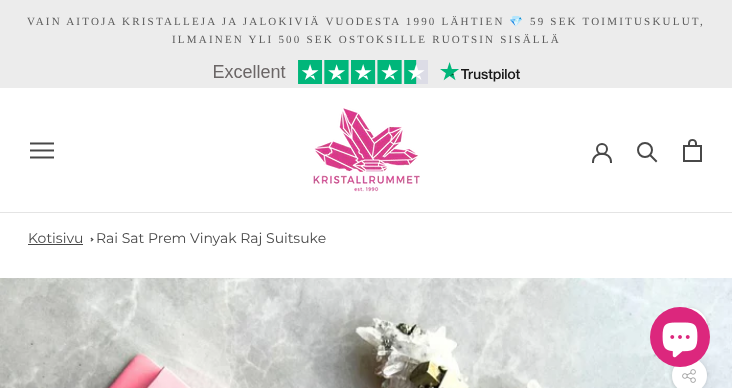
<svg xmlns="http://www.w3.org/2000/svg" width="732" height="388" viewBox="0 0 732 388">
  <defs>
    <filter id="blur1" x="-50%" y="-200%" width="200%" height="500%"><feGaussianBlur stdDeviation="2.5"/></filter>
  </defs>
  <rect width="100%" height="100%" fill="#ffffff"/>
  <rect x="0" y="0" width="732" height="88" fill="#ececec"/>
  <text x="27" y="25" font-family="Liberation Serif" font-size="11" letter-spacing="2.2" fill="#5c5c5c">VAIN AITOJA KRISTALLEJA JA JALOKIVIÄ VUODESTA 1990 LÄHTIEN</text>
  <text x="509" y="25" font-family="Noto Color Emoji" font-size="11" letter-spacing="2.2" fill="#5c5c5c">💎</text>
  <text x="530" y="25" font-family="Liberation Serif" font-size="11" letter-spacing="2.2" fill="#5c5c5c">59 SEK TOIMITUSKULUT,</text>
  <text x="172" y="43" font-family="Liberation Serif" font-size="11" letter-spacing="2.2" fill="#5c5c5c">ILMAINEN YLI 500 SEK OSTOKSILLE RUOTSIN SISÄLLÄ</text>
  <image x="214" y="60" width="306" height="24" href="img1.png"/>
  <rect x="0" y="212" width="732" height="1" fill="#e4e4e4"/>
  <image x="30" y="142" width="24" height="17" href="img2.png"/>
  <image x="313" y="108" width="107" height="84" href="img3.png"/>
  <path d="M593 162C593 151 611 151 611 162" fill="none" stroke="#484848" stroke-width="2" stroke-linecap="square"/>
  <circle cx="602" cy="149" r="5" fill="none" stroke="#484848" stroke-width="2"/>
  <path d="M656 161L650.5 155.5" fill="none" stroke="#484848" stroke-width="2" stroke-linecap="square"/>
  <circle cx="645" cy="150" r="7" fill="none" stroke="#484848" stroke-width="2"/>
  <image x="683" y="139" width="19" height="23" href="img4.png"/>
  <text x="28" y="243" font-family="Montserrat" font-size="14" fill="#484848">Kotisivu</text>
  <rect x="28" y="244" width="55" height="1" fill="#484848"/>
  <path d="M91.5 237.5L93.5 239.5L92.5 240.5L90.5 238.5Z" fill="#484848"/>
  <path d="M92.5 239L93.5 239.5L91.5 241.5L90.5 241Z" fill="#484848"/>
  <text x="96" y="243" font-family="Montserrat" font-size="14" fill="#484848">Rai Sat Prem Vinyak Raj Suitsuke</text>
  <image x="0" y="278" width="732" height="110" href="img5.png"/>
  <rect x="672" y="309" width="35" height="35" rx="17.5" fill="#363636" fill-opacity="0.15" filter="url(#blur1)"/>
  <circle cx="689.5" cy="325.5" r="17.5" fill="#ffffff"/>
  <rect x="672" y="359" width="35" height="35" rx="17.5" fill="#363636" fill-opacity="0.15" filter="url(#blur1)"/>
  <circle cx="689.5" cy="375.5" r="17.5" fill="#ffffff"/>
  <image x="682" y="369" width="14" height="14" href="img6.png"/>
  <circle cx="680" cy="337" r="30" fill="#dc277d"/>
  <image x="662" y="322" width="36" height="36" href="img7.png"/>
</svg>
